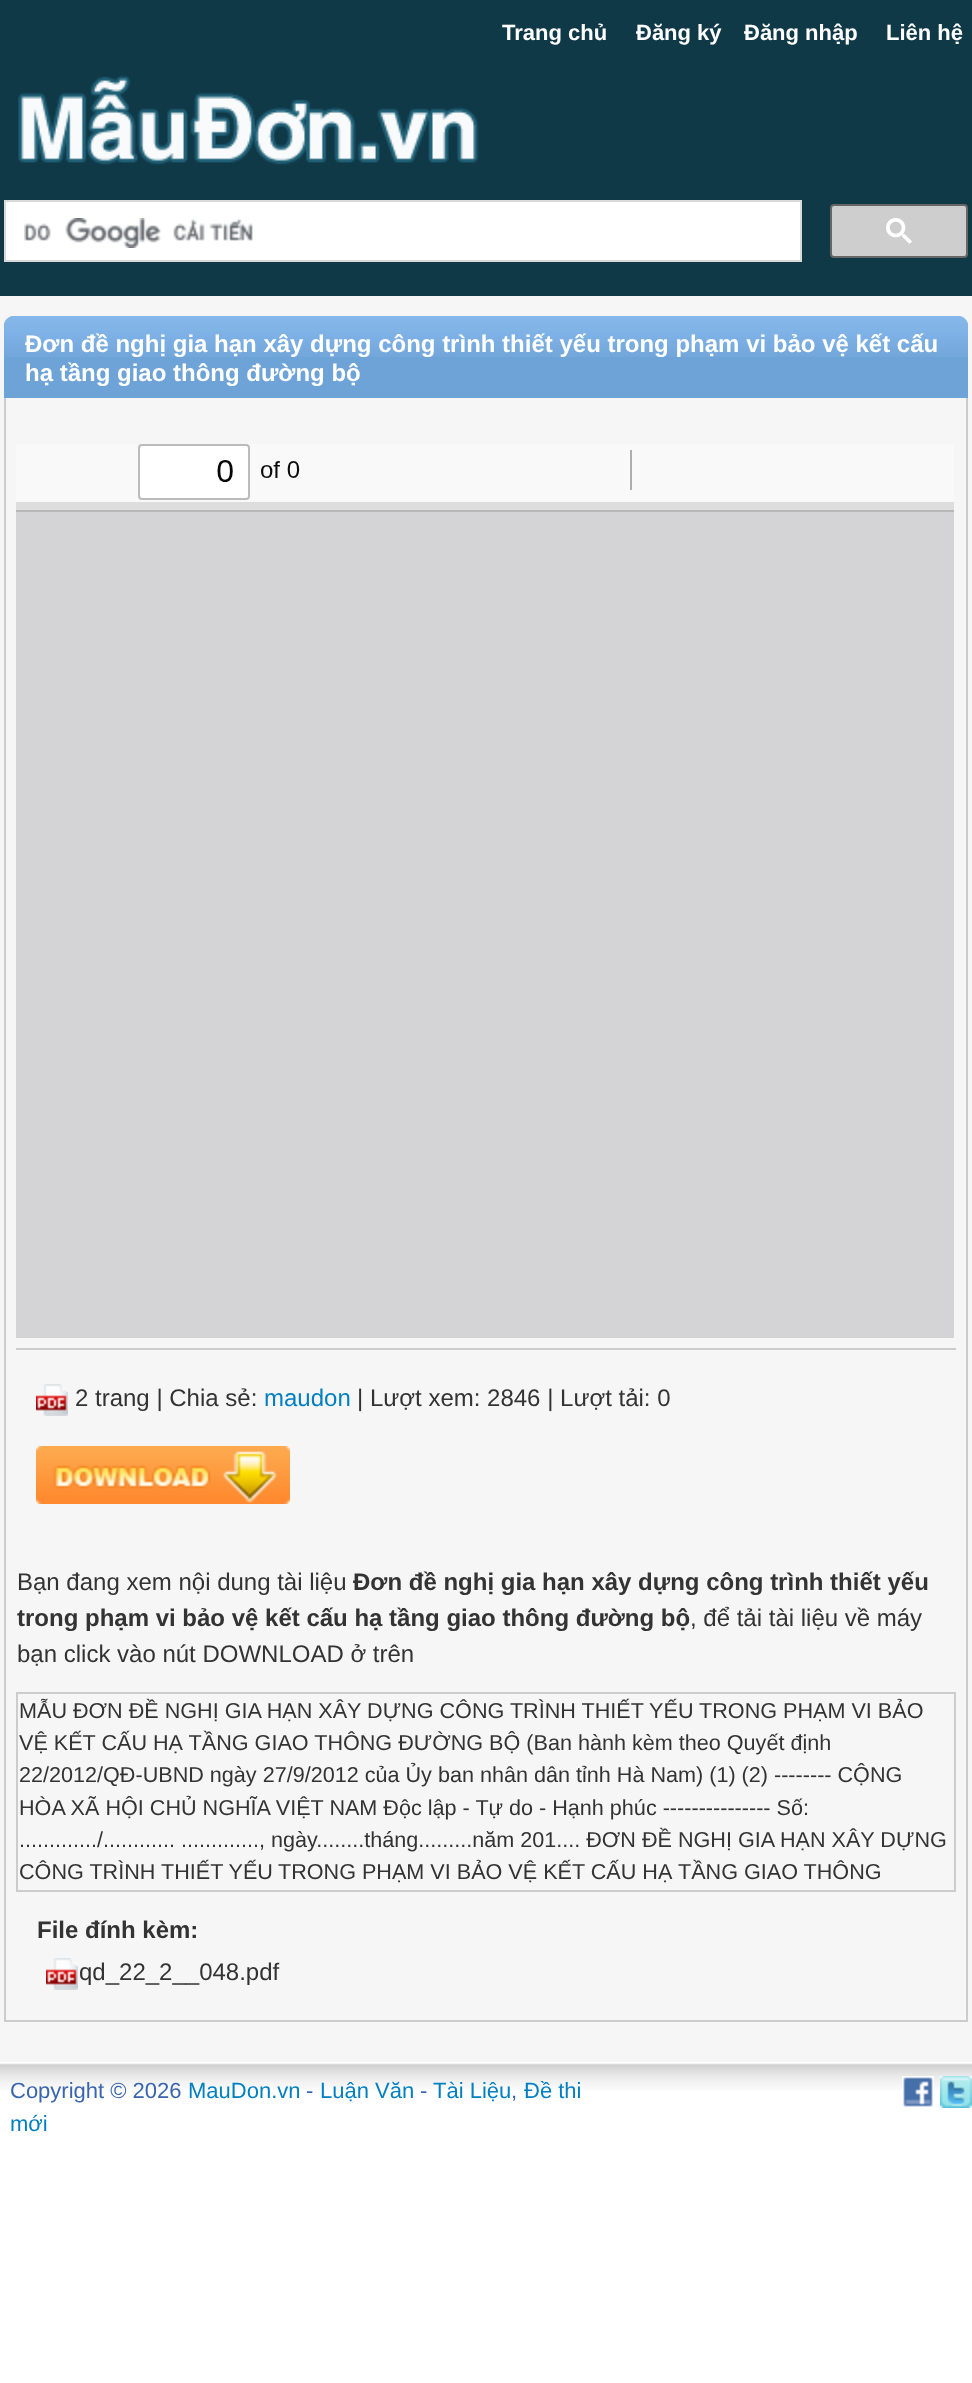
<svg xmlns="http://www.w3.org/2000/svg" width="972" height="2383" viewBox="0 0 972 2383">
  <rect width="100%" height="100%" fill="#ffffff"/>
  <rect x="0" y="296" width="972" height="1766" fill="#f6f6f6"/>
  <rect x="0" y="0" width="972" height="296" fill="#103948"/>
  <text x="502" y="40" font-family="Liberation Sans" font-size="22" font-weight="bold" fill="#ffffff">Trang chủ</text>
  <text x="636" y="40" font-family="Liberation Sans" font-size="22" font-weight="bold" fill="#ffffff">Đăng ký</text>
  <text x="744" y="40" font-family="Liberation Sans" font-size="22" font-weight="bold" fill="#ffffff">Đăng nhập</text>
  <text x="886" y="40" font-family="Liberation Sans" font-size="22" font-weight="bold" fill="#ffffff">Liên hệ</text>
  <image x="18" y="75" width="461" height="90" href="img1.png"/>
  <rect x="5" y="201" width="796" height="60" fill="#ffffff" stroke="#d9d9d9" stroke-width="2"/>
  <image x="24" y="218" width="229" height="30" href="img2.png"/>
  <rect x="831" y="205" width="136" height="52" rx="3" fill="#cecece" stroke="#666666" stroke-width="2"/>
  <image x="886" y="218" width="26" height="26" href="img3.png"/>
  <path d="M14 316H958C963.5 316 968 320.5 968 326V398H4V326C4 320.5 8.5 316 14 316Z" fill="#6ea3d8"/>
  <image x="4" y="316" width="964" height="41" href="img4.png"/>
  <text x="25" y="352" font-family="Liberation Sans" font-size="24" font-weight="bold" fill="#ffffff">Đơn đề nghị gia hạn xây dựng công trình thiết yếu trong phạm vi bảo vệ kết cấu</text>
  <text x="25" y="381" font-family="Liberation Sans" font-size="24" font-weight="bold" fill="#ffffff">hạ tầng giao thông đường bộ</text>
  <rect x="966" y="398" width="2" height="1624" fill="#cccccc"/>
  <rect x="4" y="2020" width="964" height="2" fill="#cccccc"/>
  <rect x="4" y="398" width="2" height="1624" fill="#cccccc"/>
  <rect x="16" y="1348" width="940" height="2" fill="#cccccc"/>
  <image x="16" y="444" width="938" height="894" href="img5.png"/>
  <image x="36" y="1384" width="32" height="32" href="img6.png"/>
  <text x="75" y="1406" font-family="Liberation Sans" font-size="24" fill="#333333">2 trang | Chia sẻ:</text>
  <text x="264" y="1406" font-family="Liberation Sans" font-size="24" fill="#007fc2">maudon</text>
  <text x="357" y="1406" font-family="Liberation Sans" font-size="24" fill="#333333">| Lượt xem: 2846 | Lượt tải: 0</text>
  <image x="36" y="1446" width="254" height="58" href="img7.png"/>
  <text x="17" y="1590" font-family="Liberation Sans" font-size="24" fill="#333333">Bạn đang xem nội dung tài liệu</text>
  <text x="353" y="1590" font-family="Liberation Sans" font-size="24" font-weight="bold" fill="#333333">Đơn đề nghị gia hạn xây dựng công trình thiết yếu</text>
  <text x="17" y="1626" font-family="Liberation Sans" font-size="24" font-weight="bold" fill="#333333">trong phạm vi bảo vệ kết cấu hạ tầng giao thông đường bộ</text>
  <text x="690" y="1626" font-family="Liberation Sans" font-size="24" fill="#333333">, để tải tài liệu về máy</text>
  <text x="17" y="1662" font-family="Liberation Sans" font-size="24" fill="#333333">bạn click vào nút DOWNLOAD ở trên</text>
  <rect x="17" y="1693" width="938" height="198" fill="none" stroke="#cccccc" stroke-width="2"/>
  <text x="19" y="1718" font-family="Liberation Sans" font-size="21.6" fill="#333333">MẪU ĐƠN ĐỀ NGHỊ GIA HẠN XÂY DỰNG CÔNG TRÌNH THIẾT YẾU TRONG PHẠM VI BẢO</text>
  <text x="19" y="1750" font-family="Liberation Sans" font-size="21.6" fill="#333333">VỆ KẾT CẤU HẠ TẦNG GIAO THÔNG ĐƯỜNG BỘ (Ban hành kèm theo Quyết định</text>
  <text x="19" y="1782" font-family="Liberation Sans" font-size="21.6" fill="#333333">22/2012/QĐ-UBND ngày 27/9/2012 của Ủy ban nhân dân tỉnh Hà Nam) (1) (2) -------- CỘNG</text>
  <text x="19" y="1815" font-family="Liberation Sans" font-size="21.6" fill="#333333">HÒA XÃ HỘI CHỦ NGHĨA VIỆT NAM Độc lập - Tự do - Hạnh phúc --------------- Số:</text>
  <text x="19" y="1847" font-family="Liberation Sans" font-size="21.6" fill="#333333">............./............ ............., ngày........tháng.........năm 201.... ĐƠN ĐỀ NGHỊ GIA HẠN XÂY DỰNG</text>
  <text x="19" y="1879" font-family="Liberation Sans" font-size="21.6" fill="#333333">CÔNG TRÌNH THIẾT YẾU</text>
  <text x="278" y="1879" font-family="Liberation Sans" font-size="21.6" fill="#333333">TRONG PHẠM VI BẢO VỆ KẾT CẤU HẠ TẦNG GIAO THÔNG</text>
  <text x="37" y="1938" font-family="Liberation Sans" font-size="24" font-weight="bold" fill="#333333">File đính kèm:</text>
  <image x="46" y="1958" width="32" height="32" href="img6.png"/>
  <text x="79" y="1980" font-family="Liberation Sans" font-size="24" fill="#333333">qd_22_2__048.pdf</text>
  <image x="0" y="2063" width="972" height="27" href="img8.png"/>
  <text x="10" y="2098" font-family="Liberation Sans" font-size="22" fill="#3a65ae">Copyright © 2026</text>
  <text x="188" y="2098" font-family="Liberation Sans" font-size="22" fill="#007fc2">MauDon.vn</text>
  <text x="306" y="2098" font-family="Liberation Sans" font-size="22" fill="#3a65ae">-</text>
  <text x="320" y="2098" font-family="Liberation Sans" font-size="22" fill="#007fc2">Luận Văn</text>
  <text x="420" y="2098" font-family="Liberation Sans" font-size="22" fill="#3a65ae">-</text>
  <text x="433" y="2098" font-family="Liberation Sans" font-size="22" fill="#007fc2">Tài Liệu</text>
  <text x="524" y="2098" font-family="Liberation Sans" font-size="22" fill="#007fc2">Đề thi</text>
  <text x="511" y="2098" font-family="Liberation Sans" font-size="22" fill="#3a65ae">,</text>
  <text x="10" y="2131" font-family="Liberation Sans" font-size="22" fill="#007fc2">mới</text>
  <image x="902" y="2076" width="32" height="31" href="img9.png"/>
  <image x="940" y="2076" width="32" height="32" href="img10.png"/>
</svg>
